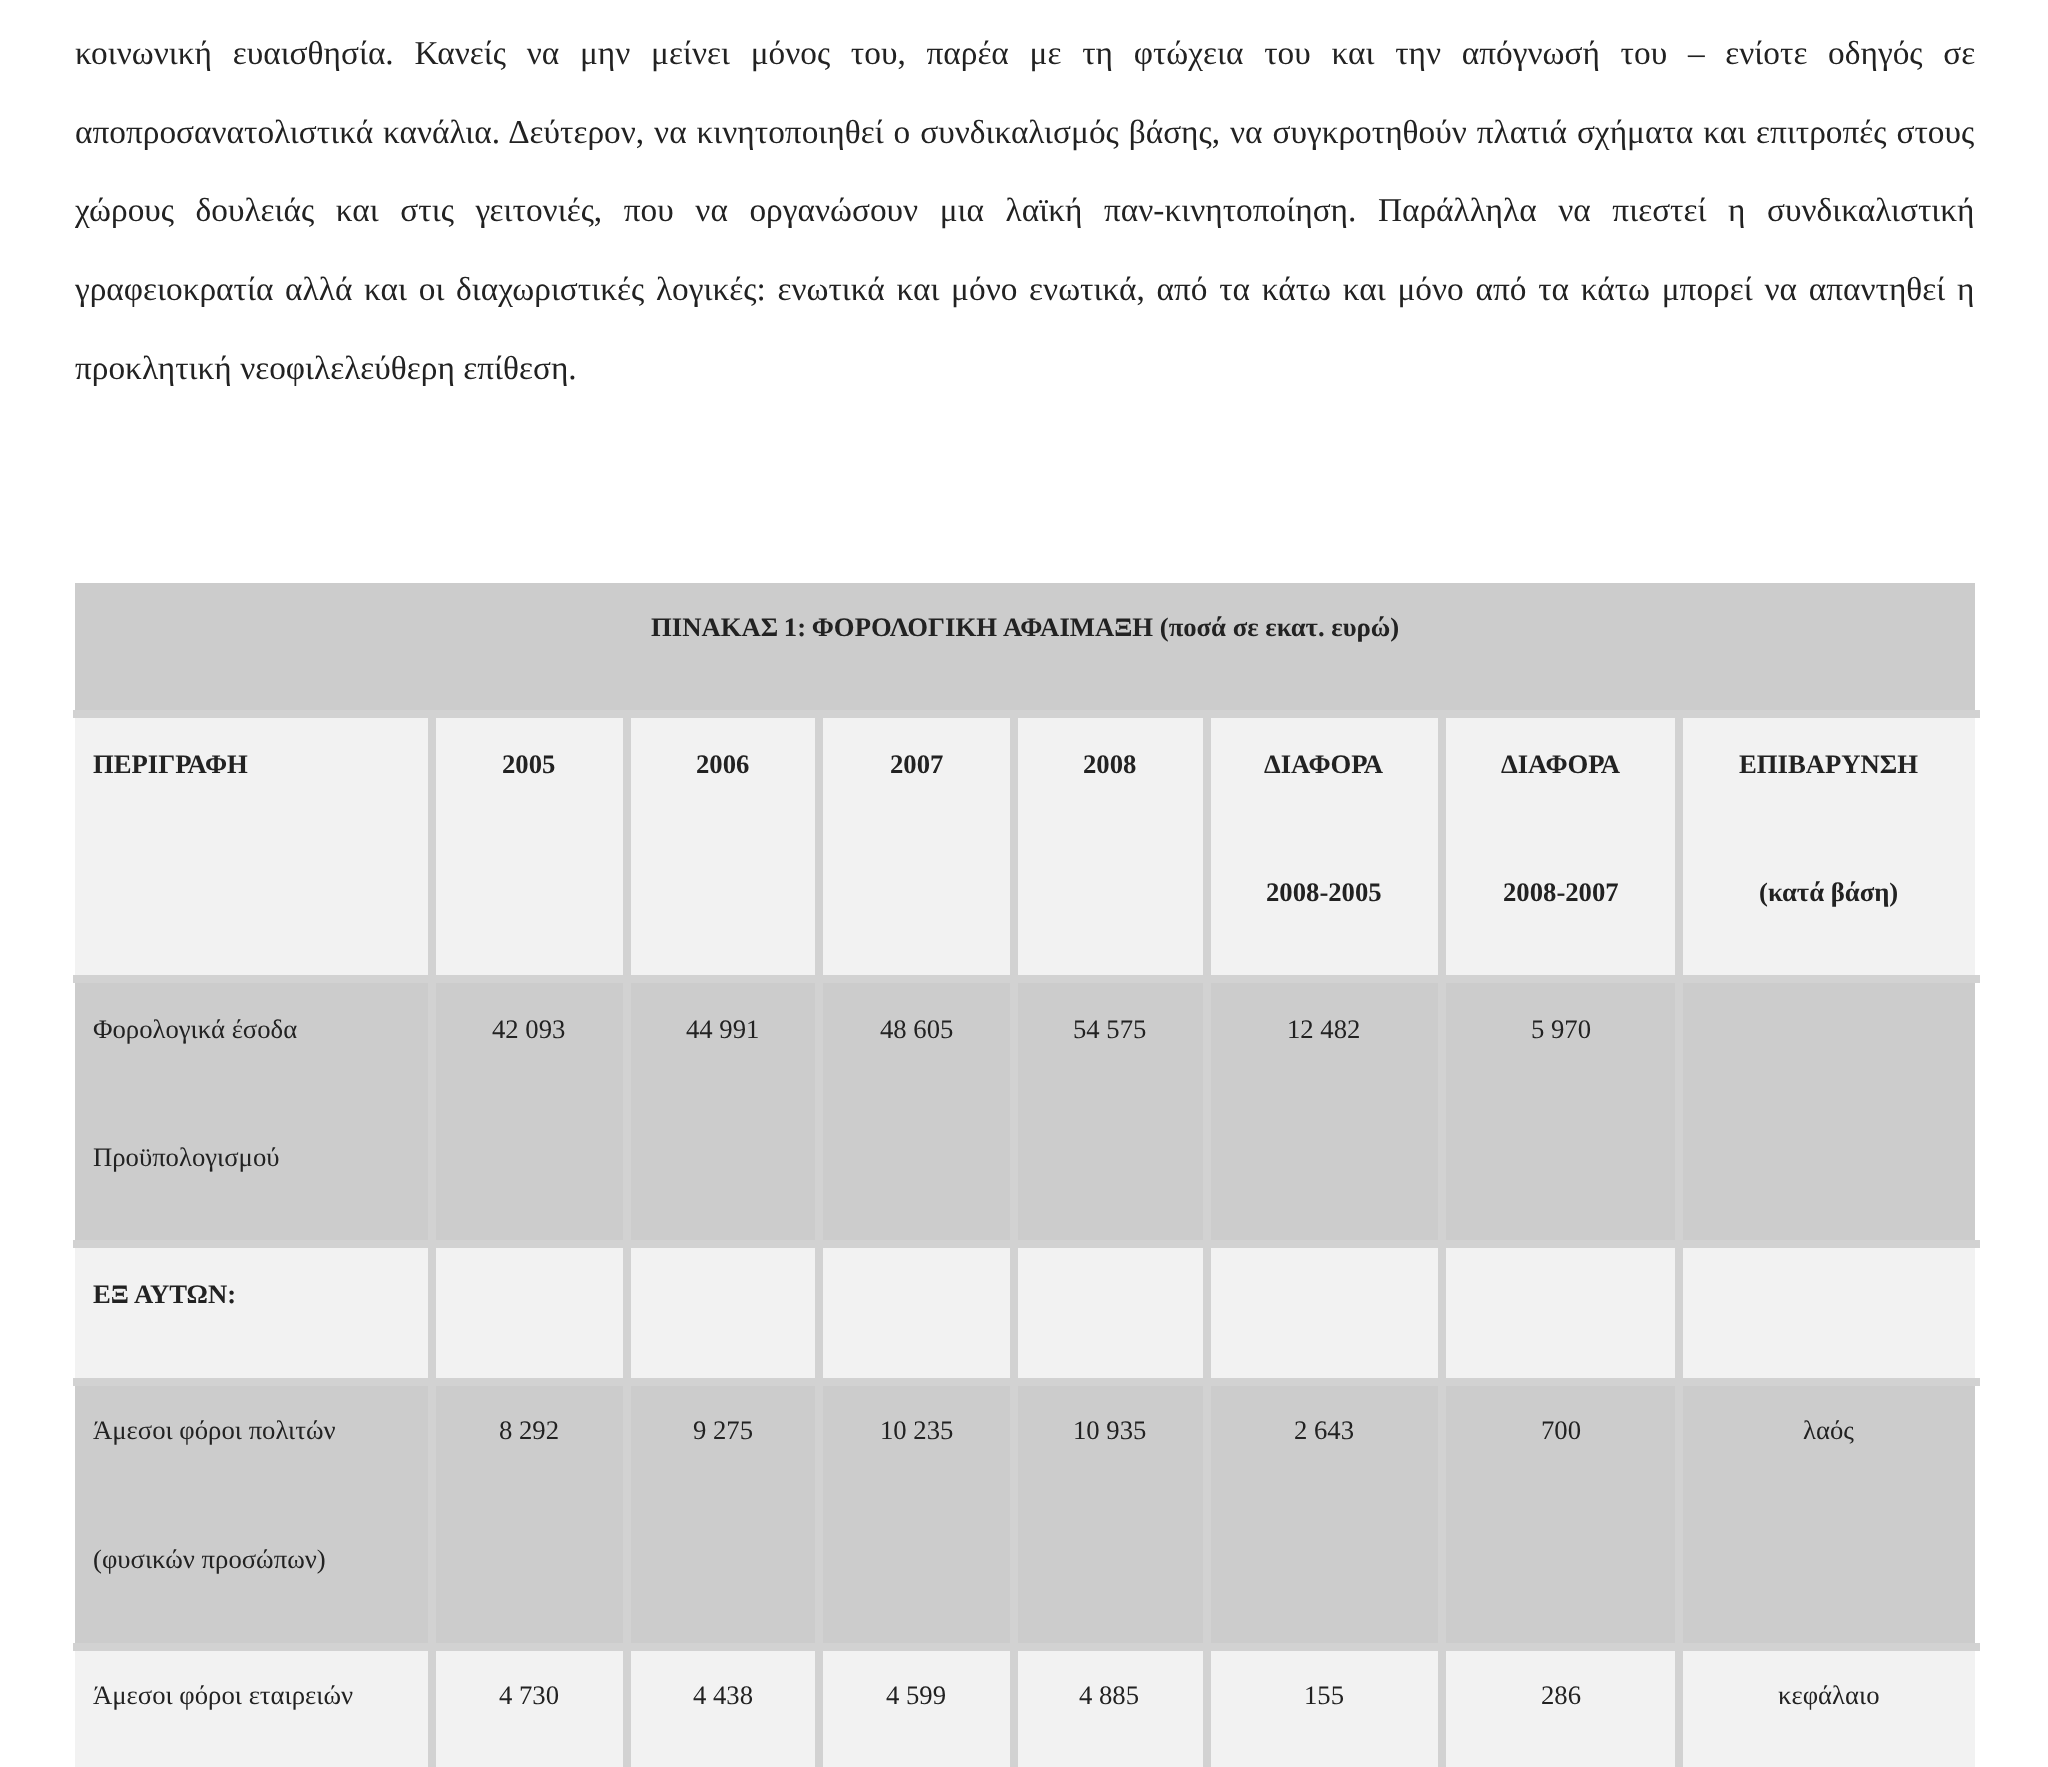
<svg xmlns="http://www.w3.org/2000/svg" width="2048" height="1767" viewBox="0 0 2048 1767">
  <rect width="100%" height="100%" fill="#ffffff"/>
  <text x="75" y="64" word-spacing="12.4" font-family="Liberation Serif" font-size="33.33" fill="#222222">κοινωνική ευαισθησία. Κανείς να μην μείνει μόνος του, παρέα με τη φτώχεια του και την απόγνωσή του – ενίοτε οδηγός σε</text>
  <text x="75" y="143" word-spacing="1.6" font-family="Liberation Serif" font-size="33.33" fill="#222222">αποπροσανατολιστικά κανάλια. Δεύτερον, να κινητοποιηθεί ο συνδικαλισμός βάσης, να συγκροτηθούν πλατιά σχήματα και επιτροπές στους</text>
  <text x="75" y="221" word-spacing="13.25" font-family="Liberation Serif" font-size="33.33" fill="#222222">χώρους δουλειάς και στις γειτονιές, που να οργανώσουν μια λαϊκή παν-κινητοποίηση. Παράλληλα να πιεστεί η συνδικαλιστική</text>
  <text x="75" y="300" word-spacing="3.4" font-family="Liberation Serif" font-size="33.33" fill="#222222">γραφειοκρατία αλλά και οι διαχωριστικές λογικές: ενωτικά και μόνο ενωτικά, από τα κάτω και μόνο από τα κάτω μπορεί να απαντηθεί η</text>
  <text x="75" y="379" font-family="Liberation Serif" font-size="33.33" fill="#222222">προκλητική νεοφιλελεύθερη επίθεση.</text>
  <rect x="75" y="583" width="1900" height="127" fill="#cccccc"/>
  <rect x="1675" y="1643" width="8" height="124" fill="#d2d2d2"/>
  <rect x="1675" y="1643" width="305" height="8" fill="#d2d2d2"/>
  <rect x="1675" y="1378" width="8" height="272" fill="#d2d2d2"/>
  <rect x="1675" y="1378" width="305" height="8" fill="#d2d2d2"/>
  <rect x="1675" y="1240" width="8" height="145" fill="#d2d2d2"/>
  <rect x="1675" y="1240" width="305" height="8" fill="#d2d2d2"/>
  <rect x="1675" y="975" width="8" height="273" fill="#d2d2d2"/>
  <rect x="1675" y="975" width="305" height="8" fill="#d2d2d2"/>
  <rect x="1675" y="710" width="8" height="273" fill="#d2d2d2"/>
  <rect x="1438" y="1643" width="8" height="124" fill="#d2d2d2"/>
  <rect x="1438" y="1643" width="245" height="8" fill="#d2d2d2"/>
  <rect x="1438" y="1378" width="8" height="272" fill="#d2d2d2"/>
  <rect x="1438" y="1378" width="245" height="8" fill="#d2d2d2"/>
  <rect x="1438" y="1240" width="8" height="145" fill="#d2d2d2"/>
  <rect x="1438" y="1240" width="245" height="8" fill="#d2d2d2"/>
  <rect x="1438" y="975" width="8" height="273" fill="#d2d2d2"/>
  <rect x="1438" y="975" width="245" height="8" fill="#d2d2d2"/>
  <rect x="1438" y="710" width="8" height="273" fill="#d2d2d2"/>
  <rect x="1203" y="1643" width="8" height="124" fill="#d2d2d2"/>
  <rect x="1203" y="1643" width="242" height="8" fill="#d2d2d2"/>
  <rect x="1203" y="1378" width="8" height="272" fill="#d2d2d2"/>
  <rect x="1203" y="1378" width="242" height="8" fill="#d2d2d2"/>
  <rect x="1203" y="1240" width="8" height="145" fill="#d2d2d2"/>
  <rect x="1203" y="1240" width="242" height="8" fill="#d2d2d2"/>
  <rect x="1203" y="975" width="8" height="273" fill="#d2d2d2"/>
  <rect x="1203" y="975" width="242" height="8" fill="#d2d2d2"/>
  <rect x="1203" y="710" width="8" height="273" fill="#d2d2d2"/>
  <rect x="1010" y="1643" width="8" height="124" fill="#d2d2d2"/>
  <rect x="1010" y="1643" width="200" height="8" fill="#d2d2d2"/>
  <rect x="1010" y="1378" width="8" height="272" fill="#d2d2d2"/>
  <rect x="1010" y="1378" width="200" height="8" fill="#d2d2d2"/>
  <rect x="1010" y="1240" width="8" height="145" fill="#d2d2d2"/>
  <rect x="1010" y="1240" width="200" height="8" fill="#d2d2d2"/>
  <rect x="1010" y="975" width="8" height="273" fill="#d2d2d2"/>
  <rect x="1010" y="975" width="200" height="8" fill="#d2d2d2"/>
  <rect x="1010" y="710" width="8" height="273" fill="#d2d2d2"/>
  <rect x="815" y="1643" width="8" height="124" fill="#d2d2d2"/>
  <rect x="815" y="1643" width="203" height="8" fill="#d2d2d2"/>
  <rect x="815" y="1378" width="8" height="272" fill="#d2d2d2"/>
  <rect x="815" y="1378" width="203" height="8" fill="#d2d2d2"/>
  <rect x="815" y="1240" width="8" height="145" fill="#d2d2d2"/>
  <rect x="815" y="1240" width="203" height="8" fill="#d2d2d2"/>
  <rect x="815" y="975" width="8" height="273" fill="#d2d2d2"/>
  <rect x="815" y="975" width="203" height="8" fill="#d2d2d2"/>
  <rect x="815" y="710" width="8" height="273" fill="#d2d2d2"/>
  <rect x="623" y="1643" width="8" height="124" fill="#d2d2d2"/>
  <rect x="623" y="1643" width="200" height="8" fill="#d2d2d2"/>
  <rect x="623" y="1378" width="8" height="272" fill="#d2d2d2"/>
  <rect x="623" y="1378" width="200" height="8" fill="#d2d2d2"/>
  <rect x="623" y="1240" width="8" height="145" fill="#d2d2d2"/>
  <rect x="623" y="1240" width="200" height="8" fill="#d2d2d2"/>
  <rect x="623" y="975" width="8" height="273" fill="#d2d2d2"/>
  <rect x="623" y="975" width="200" height="8" fill="#d2d2d2"/>
  <rect x="623" y="710" width="8" height="273" fill="#d2d2d2"/>
  <rect x="428" y="1643" width="8" height="124" fill="#d2d2d2"/>
  <rect x="428" y="1643" width="202" height="8" fill="#d2d2d2"/>
  <rect x="428" y="1378" width="8" height="272" fill="#d2d2d2"/>
  <rect x="428" y="1378" width="202" height="8" fill="#d2d2d2"/>
  <rect x="428" y="1240" width="8" height="145" fill="#d2d2d2"/>
  <rect x="428" y="1240" width="202" height="8" fill="#d2d2d2"/>
  <rect x="428" y="975" width="8" height="273" fill="#d2d2d2"/>
  <rect x="428" y="975" width="202" height="8" fill="#d2d2d2"/>
  <rect x="428" y="710" width="8" height="273" fill="#d2d2d2"/>
  <rect x="73" y="710" width="1907" height="8" fill="#d2d2d2"/>
  <text x="651" y="636" word-spacing="-1" font-family="Liberation Serif" font-size="26.7" font-weight="bold" fill="#222222">ΠΙΝΑΚΑΣ 1: ΦΟΡΟΛΟΓΙΚΗ</text>
  <text x="1003" y="636" font-family="Liberation Serif" font-size="26.7" font-weight="bold" fill="#222222">ΑΦΑΙΜΑΞΗ (ποσά σε εκατ. ευρώ)</text>
  <rect x="75" y="718" width="353" height="257" fill="#f2f2f2"/>
  <rect x="73" y="975" width="362" height="8" fill="#d2d2d2"/>
  <text x="93" y="773" font-family="Liberation Serif" font-size="26.7" font-weight="bold" fill="#222222">ΠΕΡΙΓΡΑΦΗ</text>
  <rect x="436" y="718" width="187" height="257" fill="#f2f2f2"/>
  <text x="502" y="773" font-family="Liberation Serif" font-size="26.7" font-weight="bold" fill="#222222">2005</text>
  <rect x="631" y="718" width="184" height="257" fill="#f2f2f2"/>
  <text x="696" y="773" font-family="Liberation Serif" font-size="26.7" font-weight="bold" fill="#222222">2006</text>
  <rect x="823" y="718" width="187" height="257" fill="#f2f2f2"/>
  <text x="890" y="773" font-family="Liberation Serif" font-size="26.7" font-weight="bold" fill="#222222">2007</text>
  <rect x="1018" y="718" width="185" height="257" fill="#f2f2f2"/>
  <text x="1083" y="773" font-family="Liberation Serif" font-size="26.7" font-weight="bold" fill="#222222">2008</text>
  <rect x="1211" y="718" width="227" height="257" fill="#f2f2f2"/>
  <text x="1264" y="773" font-family="Liberation Serif" font-size="26.7" font-weight="bold" fill="#222222">ΔΙΑΦΟΡΑ</text>
  <text x="1266" y="901" font-family="Liberation Serif" font-size="26.7" font-weight="bold" fill="#222222">2008-2005</text>
  <rect x="1446" y="718" width="229" height="257" fill="#f2f2f2"/>
  <text x="1501" y="773" font-family="Liberation Serif" font-size="26.7" font-weight="bold" fill="#222222">ΔΙΑΦΟΡΑ</text>
  <text x="1503" y="901" font-family="Liberation Serif" font-size="26.7" font-weight="bold" fill="#222222">2008-2007</text>
  <rect x="1683" y="718" width="292" height="257" fill="#f2f2f2"/>
  <text x="1739" y="773" font-family="Liberation Serif" font-size="26.7" font-weight="bold" fill="#222222">ΕΠΙΒΑΡΥΝΣΗ</text>
  <text x="1759" y="901" font-family="Liberation Serif" font-size="26.7" font-weight="bold" fill="#222222">(κατά βάση)</text>
  <rect x="75" y="983" width="353" height="257" fill="#cccccc"/>
  <rect x="73" y="1240" width="362" height="8" fill="#d2d2d2"/>
  <text x="93" y="1038" font-family="Liberation Serif" font-size="26.7" fill="#222222">Φορολογικά έσοδα</text>
  <text x="93" y="1166" font-family="Liberation Serif" font-size="26.7" fill="#222222">Προϋπολογισμού</text>
  <rect x="436" y="983" width="187" height="257" fill="#cccccc"/>
  <text x="492" y="1038" font-family="Liberation Serif" font-size="26.7" fill="#222222">42 093</text>
  <rect x="631" y="983" width="184" height="257" fill="#cccccc"/>
  <text x="686" y="1038" font-family="Liberation Serif" font-size="26.7" fill="#222222">44 991</text>
  <rect x="823" y="983" width="187" height="257" fill="#cccccc"/>
  <text x="880" y="1038" font-family="Liberation Serif" font-size="26.7" fill="#222222">48 605</text>
  <rect x="1018" y="983" width="185" height="257" fill="#cccccc"/>
  <text x="1073" y="1038" font-family="Liberation Serif" font-size="26.7" fill="#222222">54 575</text>
  <rect x="1211" y="983" width="227" height="257" fill="#cccccc"/>
  <text x="1287" y="1038" font-family="Liberation Serif" font-size="26.7" fill="#222222">12 482</text>
  <rect x="1446" y="983" width="229" height="257" fill="#cccccc"/>
  <text x="1531" y="1038" font-family="Liberation Serif" font-size="26.7" fill="#222222">5 970</text>
  <rect x="1683" y="983" width="292" height="257" fill="#cccccc"/>
  <rect x="75" y="1248" width="353" height="130" fill="#f2f2f2"/>
  <rect x="73" y="1378" width="362" height="8" fill="#d2d2d2"/>
  <text x="93" y="1303" font-family="Liberation Serif" font-size="26.7" font-weight="bold" fill="#222222">ΕΞ ΑΥΤΩΝ:</text>
  <rect x="436" y="1248" width="187" height="130" fill="#f2f2f2"/>
  <rect x="631" y="1248" width="184" height="130" fill="#f2f2f2"/>
  <rect x="823" y="1248" width="187" height="130" fill="#f2f2f2"/>
  <rect x="1018" y="1248" width="185" height="130" fill="#f2f2f2"/>
  <rect x="1211" y="1248" width="227" height="130" fill="#f2f2f2"/>
  <rect x="1446" y="1248" width="229" height="130" fill="#f2f2f2"/>
  <rect x="1683" y="1248" width="292" height="130" fill="#f2f2f2"/>
  <rect x="75" y="1386" width="353" height="257" fill="#cccccc"/>
  <rect x="73" y="1643" width="362" height="8" fill="#d2d2d2"/>
  <text x="93" y="1439" font-family="Liberation Serif" font-size="26.7" fill="#222222">Άμεσοι φόροι πολιτών</text>
  <text x="93" y="1568" font-family="Liberation Serif" font-size="26.7" fill="#222222">(φυσικών προσώπων)</text>
  <rect x="436" y="1386" width="187" height="257" fill="#cccccc"/>
  <text x="499" y="1439" font-family="Liberation Serif" font-size="26.7" fill="#222222">8 292</text>
  <rect x="631" y="1386" width="184" height="257" fill="#cccccc"/>
  <text x="693" y="1439" font-family="Liberation Serif" font-size="26.7" fill="#222222">9 275</text>
  <rect x="823" y="1386" width="187" height="257" fill="#cccccc"/>
  <text x="880" y="1439" font-family="Liberation Serif" font-size="26.7" fill="#222222">10 235</text>
  <rect x="1018" y="1386" width="185" height="257" fill="#cccccc"/>
  <text x="1073" y="1439" font-family="Liberation Serif" font-size="26.7" fill="#222222">10 935</text>
  <rect x="1211" y="1386" width="227" height="257" fill="#cccccc"/>
  <text x="1294" y="1439" font-family="Liberation Serif" font-size="26.7" fill="#222222">2 643</text>
  <rect x="1446" y="1386" width="229" height="257" fill="#cccccc"/>
  <text x="1541" y="1439" font-family="Liberation Serif" font-size="26.7" fill="#222222">700</text>
  <rect x="1683" y="1386" width="292" height="257" fill="#cccccc"/>
  <text x="1803" y="1439" font-family="Liberation Serif" font-size="26.7" fill="#222222">λαός</text>
  <rect x="75" y="1651" width="353" height="116" fill="#f2f2f2"/>
  <text x="93" y="1704" font-family="Liberation Serif" font-size="26.7" fill="#222222">Άμεσοι φόροι εταιρειών</text>
  <rect x="436" y="1651" width="187" height="116" fill="#f2f2f2"/>
  <text x="499" y="1704" font-family="Liberation Serif" font-size="26.7" fill="#222222">4 730</text>
  <rect x="631" y="1651" width="184" height="116" fill="#f2f2f2"/>
  <text x="693" y="1704" font-family="Liberation Serif" font-size="26.7" fill="#222222">4 438</text>
  <rect x="823" y="1651" width="187" height="116" fill="#f2f2f2"/>
  <text x="886" y="1704" font-family="Liberation Serif" font-size="26.7" fill="#222222">4 599</text>
  <rect x="1018" y="1651" width="185" height="116" fill="#f2f2f2"/>
  <text x="1079" y="1704" font-family="Liberation Serif" font-size="26.7" fill="#222222">4 885</text>
  <rect x="1211" y="1651" width="227" height="116" fill="#f2f2f2"/>
  <text x="1304" y="1704" font-family="Liberation Serif" font-size="26.7" fill="#222222">155</text>
  <rect x="1446" y="1651" width="229" height="116" fill="#f2f2f2"/>
  <text x="1541" y="1704" font-family="Liberation Serif" font-size="26.7" fill="#222222">286</text>
  <rect x="1683" y="1651" width="292" height="116" fill="#f2f2f2"/>
  <text x="1778" y="1704" font-family="Liberation Serif" font-size="26.7" fill="#222222">κεφάλαιο</text>
</svg>
